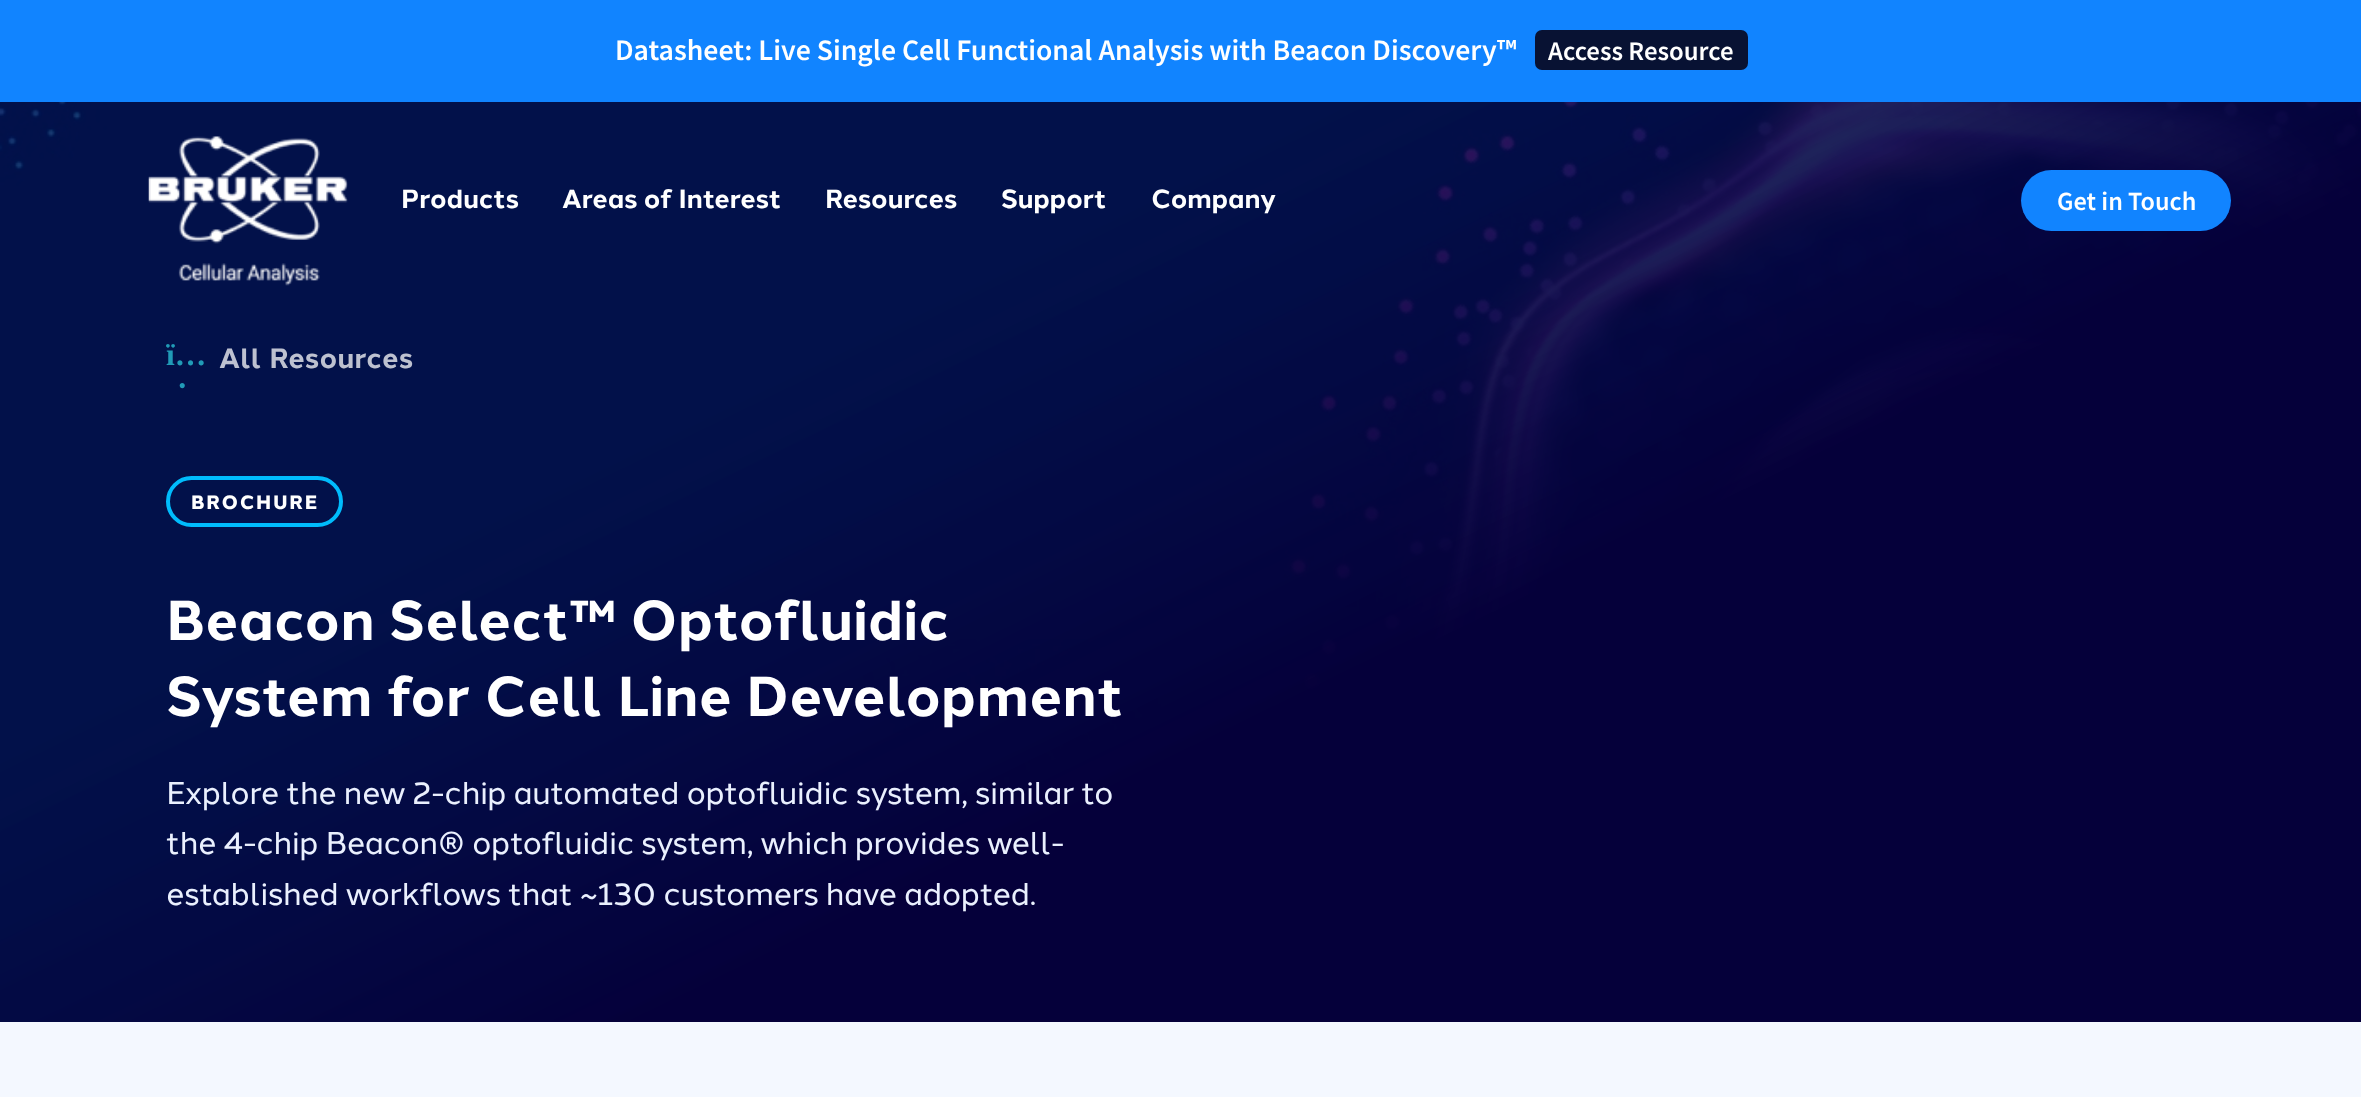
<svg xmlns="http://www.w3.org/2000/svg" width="2361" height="1097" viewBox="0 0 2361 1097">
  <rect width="100%" height="100%" fill="#ffffff"/>
  <rect x="0" y="0" width="2361" height="102" fill="#1184ff"/>
  <text x="615" y="60" font-family="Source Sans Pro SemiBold" font-size="29.75" font-weight="600" fill="#ffffff">Datasheet: Live Single Cell Functional Analysis with Beacon Discovery™</text>
  <rect x="1535" y="30" width="213" height="40" rx="7" fill="#081233"/>
  <text x="1548" y="60" font-family="Source Sans Pro SemiBold" font-size="26.75" font-weight="600" fill="#ffffff">Access Resource</text>
  <image x="0" y="102" width="2361" height="920" href="img2.png"/>
  <image x="148" y="136" width="200" height="150" href="img1.png"/>
  <text x="401" y="208" font-family="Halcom" font-size="26.25" font-weight="bold" fill="#ffffff">Products</text>
  <text x="562" y="208" font-family="Halcom" font-size="26.25" font-weight="bold" fill="#ffffff">Areas of Interest</text>
  <text x="825" y="208" font-family="Halcom" font-size="26.25" font-weight="bold" fill="#ffffff">Resources</text>
  <text x="1001" y="208" font-family="Halcom" font-size="26.25" font-weight="bold" fill="#ffffff">Support</text>
  <text x="1151" y="208" font-family="Halcom" font-size="26.25" font-weight="bold" fill="#ffffff">Company</text>
  <rect x="2021" y="170" width="210" height="61" rx="30.5" fill="#1184ff"/>
  <text x="2057" y="210" font-family="Source Sans Pro SemiBold" font-size="26.25" font-weight="600" fill="#ffffff">Get in Touch</text>
  <text x="166" y="365" font-family="Liberation Serif" font-size="31.5" font-weight="bold" fill="#219bb7">ï…</text>
  <text x="177" y="396" font-family="Liberation Serif" font-size="31.5" font-weight="bold" fill="#219bb7">·</text>
  <text x="219" y="368" font-family="Halcom" font-size="28" font-weight="bold" letter-spacing="0.35" fill="#bdc1d0">All Resources</text>
  <rect x="168" y="478" width="173" height="47" rx="23.5" fill="none" stroke="#00bcfc" stroke-width="4"/>
  <text x="191" y="509" font-family="Halcom" font-size="19.25" font-weight="800" letter-spacing="1.75" fill="#ffffff">BROCHURE</text>
  <text x="166" y="640" font-family="Halcom" font-size="56" font-weight="bold" letter-spacing="0.35" fill="#ffffff">Beacon Select™ Optofluidic</text>
  <text x="166" y="716" font-family="Halcom" font-size="56" font-weight="bold" letter-spacing="0.35" fill="#ffffff">System for Cell Line Development</text>
  <text x="166" y="804" font-family="Halcom" font-size="31.5" letter-spacing="-0.35" fill="#eaf0fe">Explore the new 2-chip automated optofluidic system, similar to</text>
  <text x="166" y="854" font-family="Halcom" font-size="31.5" letter-spacing="-0.35" fill="#eaf0fe">the 4-chip Beacon® optofluidic system, which provides well-</text>
  <text x="166" y="905" font-family="Halcom" font-size="31.5" letter-spacing="-0.35" fill="#eaf0fe">established workflows that ~130 customers have adopted.</text>
  <rect x="0" y="1022" width="2361" height="75" fill="#f4f8ff"/>
</svg>
